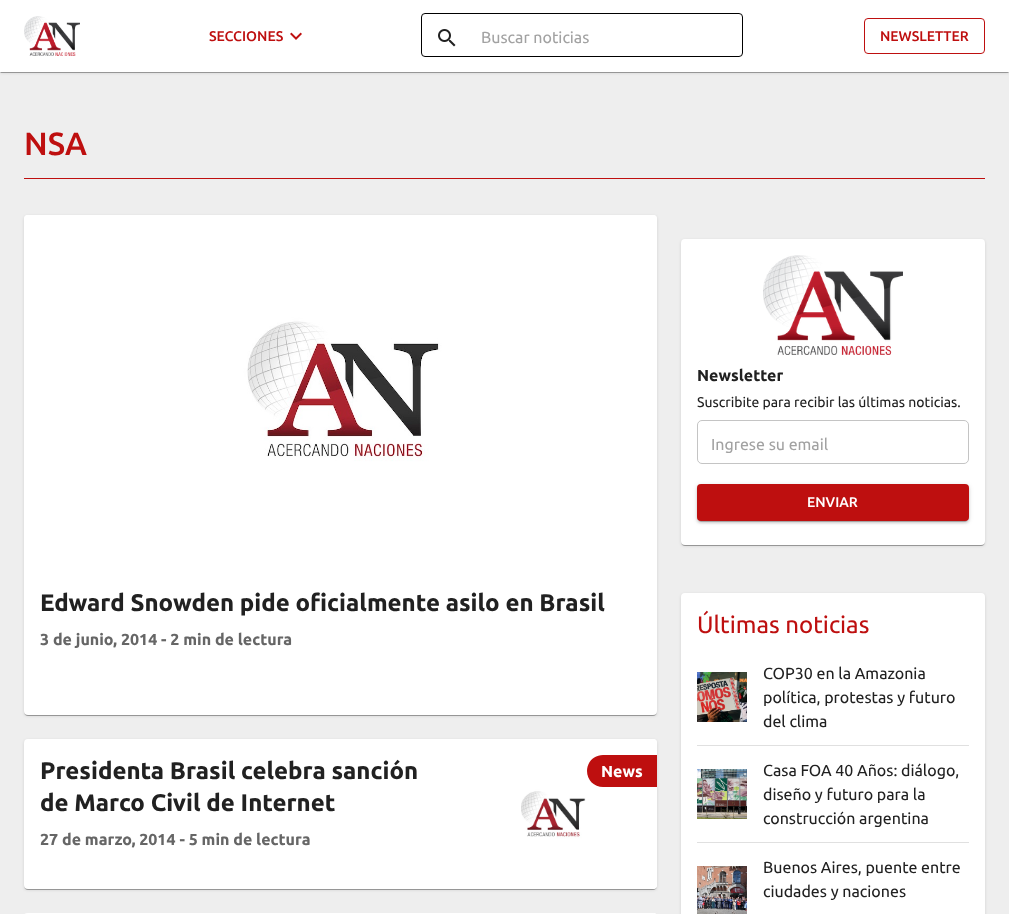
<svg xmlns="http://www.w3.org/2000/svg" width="1009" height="914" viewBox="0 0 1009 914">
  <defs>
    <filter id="blur1" x="-50%" y="-200%" width="200%" height="500%"><feGaussianBlur stdDeviation="1.5"/></filter>
    <filter id="blur2" x="-50%" y="-200%" width="200%" height="500%"><feGaussianBlur stdDeviation="0.5"/></filter>
    <filter id="blur3" x="-50%" y="-200%" width="200%" height="500%"><feGaussianBlur stdDeviation="2.5"/></filter>
    <filter id="blur4" x="-50%" y="-200%" width="200%" height="500%"><feGaussianBlur stdDeviation="1"/></filter>
  </defs>
  <rect width="100%" height="100%" fill="#eeeeee"/>
  <rect x="0" y="1" width="1009" height="72" fill="#000000" fill-opacity="0.12" filter="url(#blur1)"/>
  <rect x="0" y="1" width="1009" height="72" fill="#000000" fill-opacity="0.14" filter="url(#blur2)"/>
  <rect x="1" y="3" width="1007" height="70" fill="#000000" fill-opacity="0.2" filter="url(#blur2)"/>
  <rect x="0" y="0" width="1009" height="72" fill="#ffffff"/>
  <image x="24" y="16" width="56" height="40" href="img1.png"/>
  <text x="209" y="41" font-family="Ubuntu" font-size="14" font-weight="500" fill="#be0f0f">SECCIONES</text>
  <image x="290" y="32" width="12" height="8" href="img2.png"/>
  <image x="438" y="29" width="18" height="18" href="img3.png"/>
  <rect x="421.5" y="13.5" width="321" height="43" rx="3.5" fill="none" stroke="#000000"/>
  <text x="481" y="43" font-family="Ubuntu" font-size="16" fill="#a2a2a2">Buscar noticias</text>
  <rect x="864.5" y="18.5" width="120" height="35" rx="3.5" fill="none" stroke="#be0f0f"/>
  <text x="880" y="41" font-family="Ubuntu" font-size="14" font-weight="500" fill="#be0f0f">NEWSLETTER</text>
  <rect x="24" y="178" width="961" height="1" fill="#be0f0f"/>
  <text x="24" y="155" font-family="Ubuntu" font-size="32" font-weight="500" fill="#be0f0f">NSA</text>
  <rect x="24" y="216" width="633" height="500" rx="4" fill="#000000" fill-opacity="0.12" filter="url(#blur1)"/>
  <rect x="24" y="216" width="633" height="500" rx="4" fill="#000000" fill-opacity="0.14" filter="url(#blur2)"/>
  <rect x="25" y="218" width="631" height="498" rx="3" fill="#000000" fill-opacity="0.2" filter="url(#blur2)"/>
  <rect x="24" y="215" width="633" height="500" rx="4" fill="#ffffff"/>
  <image x="24" y="215" width="633" height="350" href="img4.png"/>
  <text x="40" y="611" font-family="Ubuntu" font-size="24" font-weight="bold" fill="#212121">Edward Snowden pide oficialmente asilo en Brasil</text>
  <text x="40" y="645" font-family="Ubuntu" font-size="16" font-weight="bold" fill="#666666">3 de junio, 2014 - 2 min de lectura</text>
  <rect x="24" y="740" width="633" height="150" rx="4" fill="#000000" fill-opacity="0.12" filter="url(#blur1)"/>
  <rect x="24" y="740" width="633" height="150" rx="4" fill="#000000" fill-opacity="0.14" filter="url(#blur2)"/>
  <rect x="25" y="742" width="631" height="148" rx="3" fill="#000000" fill-opacity="0.2" filter="url(#blur2)"/>
  <rect x="24" y="739" width="633" height="150" rx="4" fill="#ffffff"/>
  <text x="40" y="779" font-family="Ubuntu" font-size="24" font-weight="bold" fill="#212121">Presidenta Brasil celebra sanción</text>
  <text x="40" y="811" font-family="Ubuntu" font-size="24" font-weight="bold" fill="#212121">de Marco Civil de Internet</text>
  <text x="40" y="845" font-family="Ubuntu" font-size="16" font-weight="bold" fill="#666666">27 de marzo, 2014 - 5 min de lectura</text>
  <image x="521" y="739" width="136" height="150" href="img5.png"/>
  <path d="M603 755H657V787H603C594 787 587 780 587 771C587 762 594 755 603 755Z" fill="#be0f0f"/>
  <text x="601" y="777" font-family="Ubuntu" font-size="16" font-weight="bold" fill="#ffffff">News</text>
  <rect x="24" y="913" width="633" height="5" rx="4" fill="#ffffff"/>
  <image x="654" y="913" width="2" height="1" href="img6.png"/>
  <rect x="681" y="240" width="304" height="306" rx="4" fill="#000000" fill-opacity="0.12" filter="url(#blur1)"/>
  <rect x="681" y="240" width="304" height="306" rx="4" fill="#000000" fill-opacity="0.14" filter="url(#blur2)"/>
  <rect x="682" y="242" width="302" height="304" rx="3" fill="#000000" fill-opacity="0.2" filter="url(#blur2)"/>
  <rect x="681" y="239" width="304" height="306" rx="4" fill="#ffffff"/>
  <image x="763" y="255" width="140" height="100" href="img7.png"/>
  <text x="697" y="381" font-family="Ubuntu" font-size="16" font-weight="bold" fill="#212121">Newsletter</text>
  <text x="697" y="407" font-family="Ubuntu" font-size="14" fill="#212121">Suscribite para recibir las últimas noticias.</text>
  <rect x="697.5" y="420.5" width="271" height="43" rx="4.5" fill="none" stroke="#c4c4c4"/>
  <text x="711" y="450" font-family="Ubuntu" font-size="16" fill="#a2a2a2">Ingrese su email</text>
  <rect x="697" y="485" width="272" height="37" rx="4" fill="#000000" fill-opacity="0.12" filter="url(#blur3)"/>
  <rect x="697" y="486" width="272" height="37" rx="4" fill="#000000" fill-opacity="0.14" filter="url(#blur4)"/>
  <rect x="699" y="489" width="268" height="33" rx="2" fill="#000000" fill-opacity="0.2" filter="url(#blur2)"/>
  <rect x="697" y="484" width="272" height="37" rx="4" fill="#be0f0f"/>
  <text x="807" y="507" font-family="Ubuntu" font-size="14" font-weight="500" fill="#ffffff">ENVIAR</text>
  <rect x="681" y="594" width="304" height="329" rx="4" fill="#000000" fill-opacity="0.12" filter="url(#blur1)"/>
  <rect x="681" y="593" width="304" height="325" rx="4" fill="#ffffff"/>
  <text x="697" y="633" font-family="Ubuntu" font-size="24" fill="#be0f0f">Últimas noticias</text>
  <image x="697" y="672" width="50" height="50" href="img8.png"/>
  <text x="763" y="679" font-family="Ubuntu" font-size="16" fill="#212121">COP30 en la Amazonia</text>
  <text x="763" y="703" font-family="Ubuntu" font-size="16" fill="#212121">política, protestas y futuro</text>
  <text x="763" y="727" font-family="Ubuntu" font-size="16" fill="#212121">del clima</text>
  <rect x="697" y="745" width="272" height="1" fill="#e0e0e0"/>
  <image x="697" y="769" width="50" height="50" href="img9.png"/>
  <text x="763" y="776" font-family="Ubuntu" font-size="16" fill="#212121">Casa FOA 40 Años: diálogo,</text>
  <text x="763" y="800" font-family="Ubuntu" font-size="16" fill="#212121">diseño y futuro para la</text>
  <text x="763" y="824" font-family="Ubuntu" font-size="16" fill="#212121">construcción argentina</text>
  <rect x="697" y="842" width="272" height="1" fill="#e0e0e0"/>
  <image x="697" y="866" width="50" height="48" href="img10.png"/>
  <text x="763" y="873" font-family="Ubuntu" font-size="16" fill="#212121">Buenos Aires, puente entre</text>
  <text x="763" y="897" font-family="Ubuntu" font-size="16" fill="#212121">ciudades y naciones</text>
</svg>
